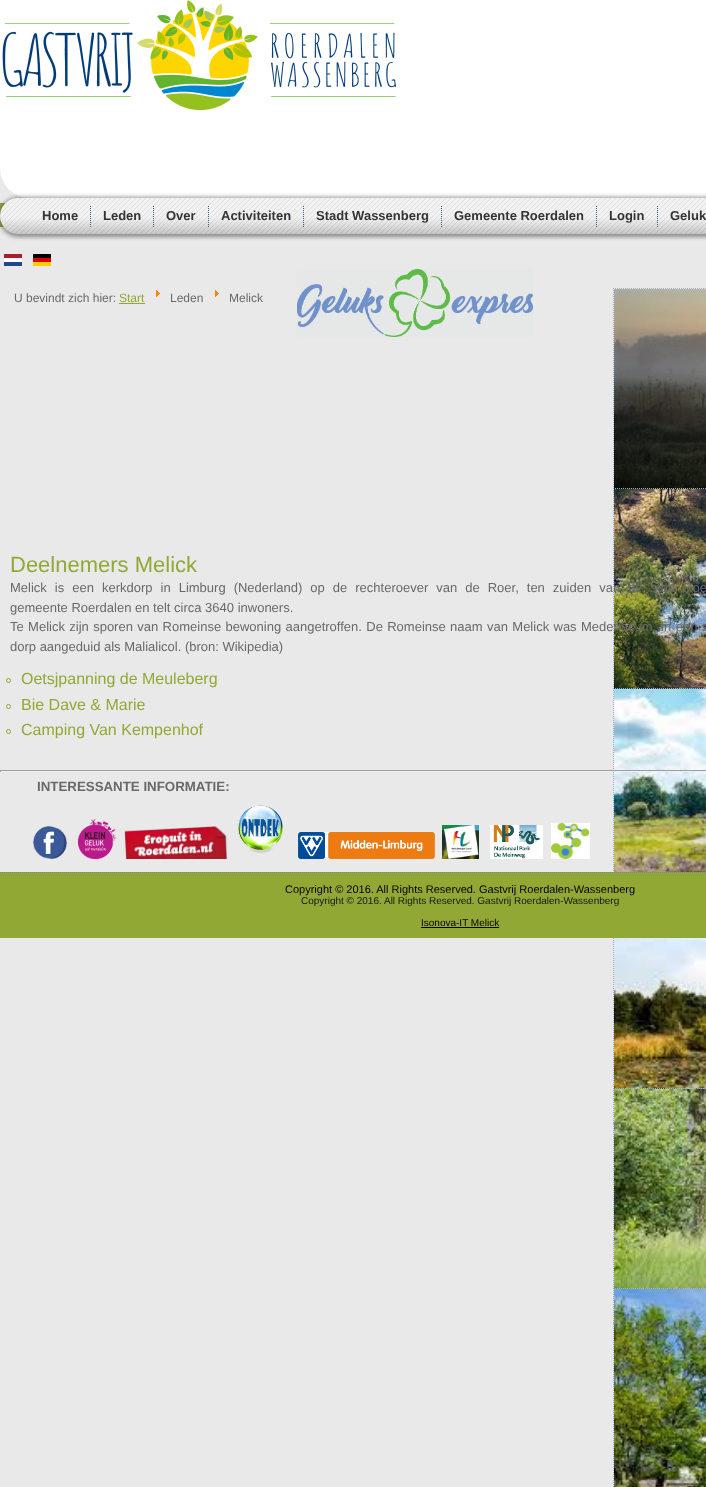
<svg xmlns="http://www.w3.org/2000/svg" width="706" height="1487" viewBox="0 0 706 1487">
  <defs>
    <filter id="blur1" x="-50%" y="-200%" width="200%" height="500%"><feGaussianBlur stdDeviation="2"/></filter>
  </defs>
  <rect width="100%" height="100%" fill="#e9e9e9"/>
  <rect x="0" y="203" width="6" height="24" fill="#92aa3c"/>
  <image x="0" y="0" width="706" height="198" href="img1.png"/>
  <rect x="-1" y="197" width="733" height="40" rx="20" fill="#000000" fill-opacity="0.4" filter="url(#blur1)"/>
  <image x="0" y="198" width="706" height="36" href="img2.png"/>
  <text x="42" y="220" font-family="Liberation Sans" font-size="13" font-weight="bold" fill="#333333">Home</text>
  <image x="90" y="206" width="1" height="21" href="img3.png"/>
  <text x="103" y="220" font-family="Liberation Sans" font-size="13" font-weight="bold" fill="#333333">Leden</text>
  <image x="153" y="206" width="1" height="21" href="img4.png"/>
  <text x="166" y="220" font-family="Liberation Sans" font-size="13" font-weight="bold" fill="#333333">Over</text>
  <image x="208" y="206" width="1" height="21" href="img5.png"/>
  <text x="221" y="220" font-family="Liberation Sans" font-size="13" font-weight="bold" fill="#333333">Activiteiten</text>
  <image x="303" y="206" width="1" height="21" href="img4.png"/>
  <text x="316" y="220" font-family="Liberation Sans" font-size="13" font-weight="bold" fill="#333333">Stadt Wassenberg</text>
  <image x="441" y="206" width="1" height="21" href="img6.png"/>
  <text x="454" y="220" font-family="Liberation Sans" font-size="13" font-weight="bold" fill="#333333">Gemeente Roerdalen</text>
  <image x="596" y="206" width="1" height="21" href="img7.png"/>
  <text x="609" y="220" font-family="Liberation Sans" font-size="13" font-weight="bold" fill="#333333">Login</text>
  <image x="657" y="206" width="1" height="21" href="img8.png"/>
  <text x="670" y="220" font-family="Liberation Sans" font-size="13" font-weight="bold" fill="#333333">Geluk</text>
  <image x="4" y="254" width="18" height="12" href="img9.png"/>
  <image x="33" y="254" width="18" height="12" href="img10.png"/>
  <text x="14" y="302" font-family="Liberation Sans" font-size="12" fill="#696969">U bevindt zich hier:</text>
  <text x="119" y="302" font-family="Liberation Sans" font-size="12" fill="#91a934">Start</text>
  <rect x="119" y="303" width="26" height="1" fill="#91a934"/>
  <image x="156" y="290" width="4" height="7" href="img11.png"/>
  <text x="170" y="302" font-family="Liberation Sans" font-size="12" fill="#696969">Leden</text>
  <image x="215" y="290" width="4" height="7" href="img11.png"/>
  <text x="229" y="302" font-family="Liberation Sans" font-size="12" fill="#696969">Melick</text>
  <image x="297" y="269" width="236" height="68" href="img12.png"/>
  <path d="M613 288.5H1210" fill="none" stroke="#97b5ce" stroke-dasharray="1 1"/>
  <path d="M613.5 288V493" fill="none" stroke="#97b5ce" stroke-dasharray="1 1"/>
  <image x="614" y="289" width="92" height="200" href="img13.png"/>
  <path d="M613 488.5H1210" fill="none" stroke="#97b5ce" stroke-dasharray="1 1"/>
  <path d="M613.5 488V713" fill="none" stroke="#97b5ce" stroke-dasharray="1 1"/>
  <image x="614" y="489" width="92" height="200" href="img14.png"/>
  <path d="M613 688.5H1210" fill="none" stroke="#97b5ce" stroke-dasharray="1 1"/>
  <path d="M613.5 688V924" fill="none" stroke="#97b5ce" stroke-dasharray="1 1"/>
  <image x="614" y="689" width="92" height="183" href="img15.png"/>
  <path d="M613.5 888V1124" fill="none" stroke="#97b5ce" stroke-dasharray="1 1"/>
  <image x="614" y="938" width="92" height="151" href="img16.png"/>
  <path d="M613 1123.5H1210" fill="none" stroke="#97b5ce" stroke-dasharray="1 1"/>
  <path d="M613 1088.5H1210" fill="none" stroke="#97b5ce" stroke-dasharray="1 1"/>
  <path d="M613.5 1088V1324" fill="none" stroke="#97b5ce" stroke-dasharray="1 1"/>
  <image x="614" y="1089" width="92" height="200" href="img17.png"/>
  <path d="M613 1323.5H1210" fill="none" stroke="#97b5ce" stroke-dasharray="1 1"/>
  <path d="M613 1288.5H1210" fill="none" stroke="#97b5ce" stroke-dasharray="1 1"/>
  <path d="M613.5 1288V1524" fill="none" stroke="#97b5ce" stroke-dasharray="1 1"/>
  <image x="614" y="1289" width="92" height="198" href="img18.png"/>
  <text x="10" y="572" font-family="Liberation Sans" font-size="22" fill="#91a934">Deelnemers Melick</text>
  <text x="10" y="592" word-spacing="4.4" font-family="Liberation Sans" font-size="13" fill="#696969">Melick is een kerkdorp in Limburg (Nederland) op de rechteroever van de Roer, ten zuiden van de stad Roe</text>
  <text x="10" y="612" font-family="Liberation Sans" font-size="13" fill="#696969">gemeente Roerdalen en telt circa 3640 inwoners.</text>
  <text x="10" y="631" word-spacing="0.75" font-family="Liberation Sans" font-size="13" fill="#696969">Te Melick zijn sporen van Romeinse bewoning aangetroffen. De Romeinse naam van Melick was Mederiacum. In een s</text>
  <text x="10" y="651" font-family="Liberation Sans" font-size="13" fill="#696969">dorp aangeduid als Malialicol. (bron: Wikipedia)</text>
  <circle cx="8.5" cy="680.5" r="2" fill="none" stroke="#91a934"/>
  <text x="21" y="684" font-family="Liberation Sans" font-size="16" fill="#91a934">Oetsjpanning de Meuleberg</text>
  <circle cx="8.5" cy="706.5" r="2" fill="none" stroke="#91a934"/>
  <text x="21" y="710" font-family="Liberation Sans" font-size="16" fill="#91a934">Bie Dave &amp; Marie</text>
  <circle cx="8.5" cy="731.5" r="2" fill="none" stroke="#91a934"/>
  <text x="21" y="735" font-family="Liberation Sans" font-size="16" fill="#91a934">Camping Van Kempenhof</text>
  <rect x="0" y="770" width="706" height="1" fill="#9f9f9f"/>
  <rect x="0" y="771" width="706" height="1" fill="#eeeeee"/>
  <rect x="0" y="770" width="1" height="2" fill="#9f9f9f"/>
  <text x="37" y="791" font-family="Liberation Sans" font-size="13.3" font-weight="bold" fill="#696969">INTERESSANTE INFORMATIE:</text>
  <image x="33" y="826" width="34" height="33" href="img19.png"/>
  <image x="78" y="819" width="38" height="40" href="img20.png"/>
  <image x="124" y="826" width="104" height="33" href="img21.png"/>
  <image x="238" y="805" width="46" height="48" href="img22.png"/>
  <image x="298" y="832" width="137" height="27" href="img23.png"/>
  <image x="442" y="825" width="37" height="34" href="img24.png"/>
  <image x="490" y="825" width="53" height="34" href="img25.png"/>
  <image x="551" y="823" width="39" height="36" href="img26.png"/>
  <rect x="0" y="872" width="706" height="66" fill="#91a934"/>
  <path d="M0 872.5H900" fill="none" stroke="#72899d" stroke-dasharray="1 1"/>
  <text x="285" y="893" font-family="Liberation Sans" font-size="11" fill="#000000">Copyright © 2016. All Rights Reserved. Gastvrij Roerdalen-Wassenberg</text>
  <text x="301" y="904" font-family="Liberation Sans" font-size="10" fill="#111518">Copyright © 2016. All Rights Reserved. Gastvrij Roerdalen-Wassenberg</text>
  <text x="421" y="926" font-family="Liberation Sans" font-size="10" fill="#000000">Isonova-IT Melick</text>
  <rect x="421" y="927" width="78" height="1" fill="#000000"/>
</svg>
